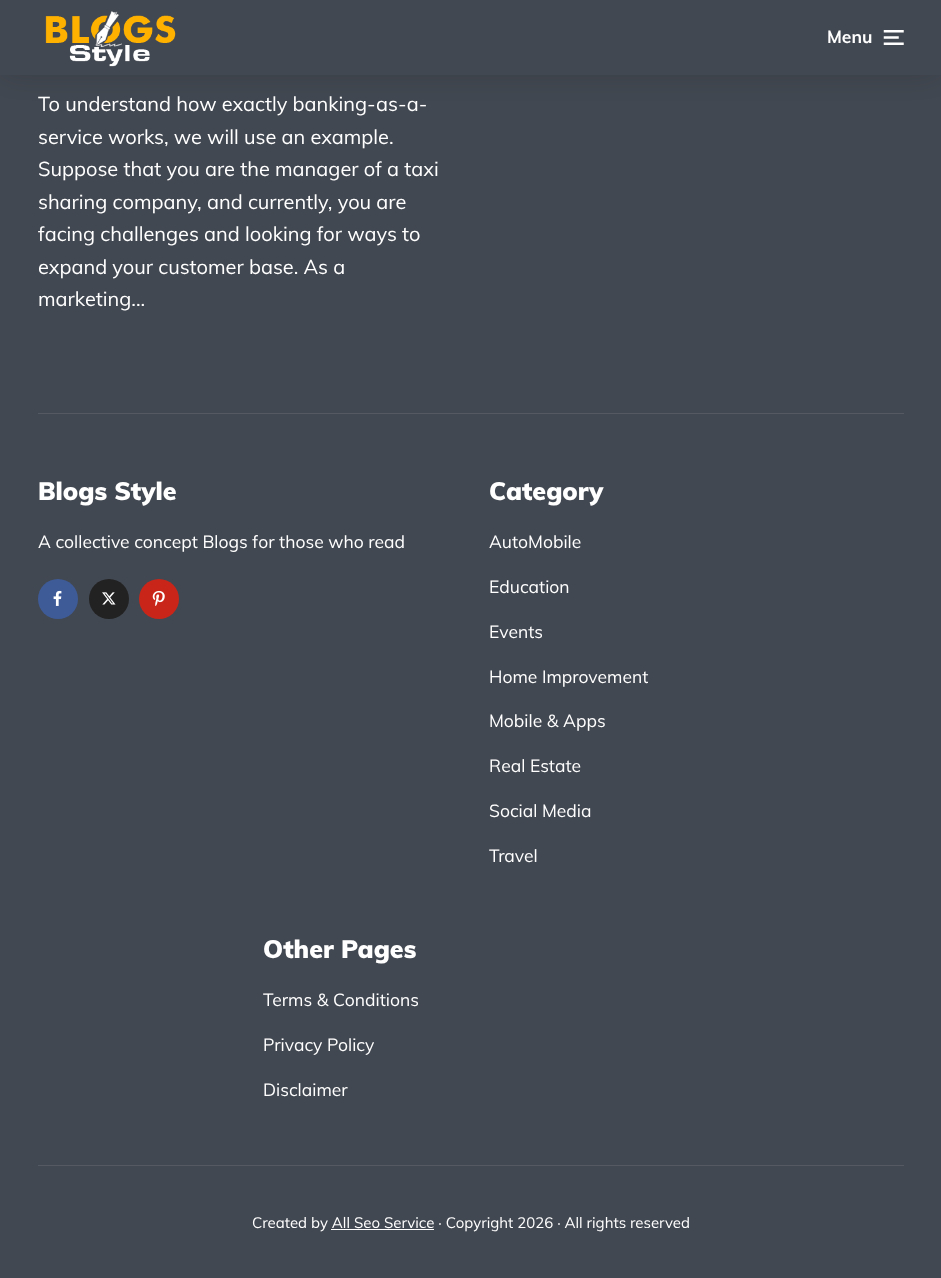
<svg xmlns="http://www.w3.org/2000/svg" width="941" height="1278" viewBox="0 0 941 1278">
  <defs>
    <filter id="blur1" x="-50%" y="-200%" width="200%" height="500%"><feGaussianBlur stdDeviation="15.5"/></filter>
  </defs>
  <rect width="100%" height="100%" fill="#424851"/>
  <rect x="0" y="0" width="941" height="75" fill="#000000" fill-opacity="0.15" filter="url(#blur1)"/>
  <rect x="0" y="0" width="941" height="75" fill="#424851"/>
  <image x="45" y="11" width="131" height="56" href="img1.png"/>
  <text x="827" y="43" font-family="Muli" font-size="17.5" font-weight="bold" fill="#ffffff">Menu</text>
  <image x="883" y="30" width="21" height="15" href="img2.png"/>
  <text x="38" y="111" font-family="Muli" font-size="20" fill="#ffffff">To understand how exactly banking-as-a-</text>
  <text x="38" y="144" font-family="Muli" font-size="20" fill="#ffffff">service works, we will use an example.</text>
  <text x="38" y="176" font-family="Muli" font-size="20" fill="#ffffff">Suppose that you are the manager of a taxi</text>
  <text x="38" y="209" font-family="Muli" font-size="20" fill="#ffffff">sharing company, and currently, you are</text>
  <text x="38" y="241" font-family="Muli" font-size="20" fill="#ffffff">facing challenges and looking for ways to</text>
  <text x="38" y="274" font-family="Muli" font-size="20" fill="#ffffff">expand your customer base. As a</text>
  <text x="38" y="306" font-family="Muli" font-size="20" fill="#ffffff">marketing...</text>
  <rect x="38" y="413" width="866" height="1" fill="#555a62"/>
  <text x="38" y="500" font-family="Muli" font-size="25" font-weight="900" fill="#ffffff">Blogs Style</text>
  <text x="38" y="548" font-family="Muli" font-size="17.5" fill="#ffffff">A collective concept Blogs for those who read</text>
  <circle cx="58" cy="599" r="20" fill="#3e5b98"/>
  <image x="53" y="590" width="9" height="16" href="img3.png"/>
  <circle cx="109" cy="599" r="20" fill="#222222"/>
  <image x="102" y="592" width="14" height="13" href="img4.png"/>
  <circle cx="159" cy="599" r="20" fill="#c92619"/>
  <image x="152" y="590" width="13" height="16" href="img5.png"/>
  <text x="489" y="500" font-family="Muli" font-size="25" font-weight="900" fill="#ffffff">Category</text>
  <text x="489" y="548" font-family="Muli" font-size="17.5" fill="#ffffff">AutoMobile</text>
  <text x="489" y="593" font-family="Muli" font-size="17.5" fill="#ffffff">Education</text>
  <text x="489" y="638" font-family="Muli" font-size="17.5" fill="#ffffff">Events</text>
  <text x="489" y="683" font-family="Muli" font-size="17.5" fill="#ffffff">Home Improvement</text>
  <text x="489" y="727" font-family="Muli" font-size="17.5" fill="#ffffff">Mobile &amp; Apps</text>
  <text x="489" y="772" font-family="Muli" font-size="17.5" fill="#ffffff">Real Estate</text>
  <text x="489" y="817" font-family="Muli" font-size="17.5" fill="#ffffff">Social Media</text>
  <text x="489" y="862" font-family="Muli" font-size="17.5" fill="#ffffff">Travel</text>
  <text x="263" y="958" font-family="Muli" font-size="25" font-weight="900" fill="#ffffff">Other Pages</text>
  <text x="263" y="1006" font-family="Muli" font-size="17.5" fill="#ffffff">Terms &amp; Conditions</text>
  <text x="263" y="1051" font-family="Muli" font-size="17.5" fill="#ffffff">Privacy Policy</text>
  <text x="263" y="1096" font-family="Muli" font-size="17.5" fill="#ffffff">Disclaimer</text>
  <rect x="38" y="1165" width="866" height="1" fill="#555a62"/>
  <text x="252" y="1228" font-family="Muli" font-size="15" fill="#ffffff">Created by All Seo Service · Copyright 2026 · All rights reserved</text>
  <rect x="331" y="1229" width="103" height="1" fill="#ffffff"/>
</svg>
